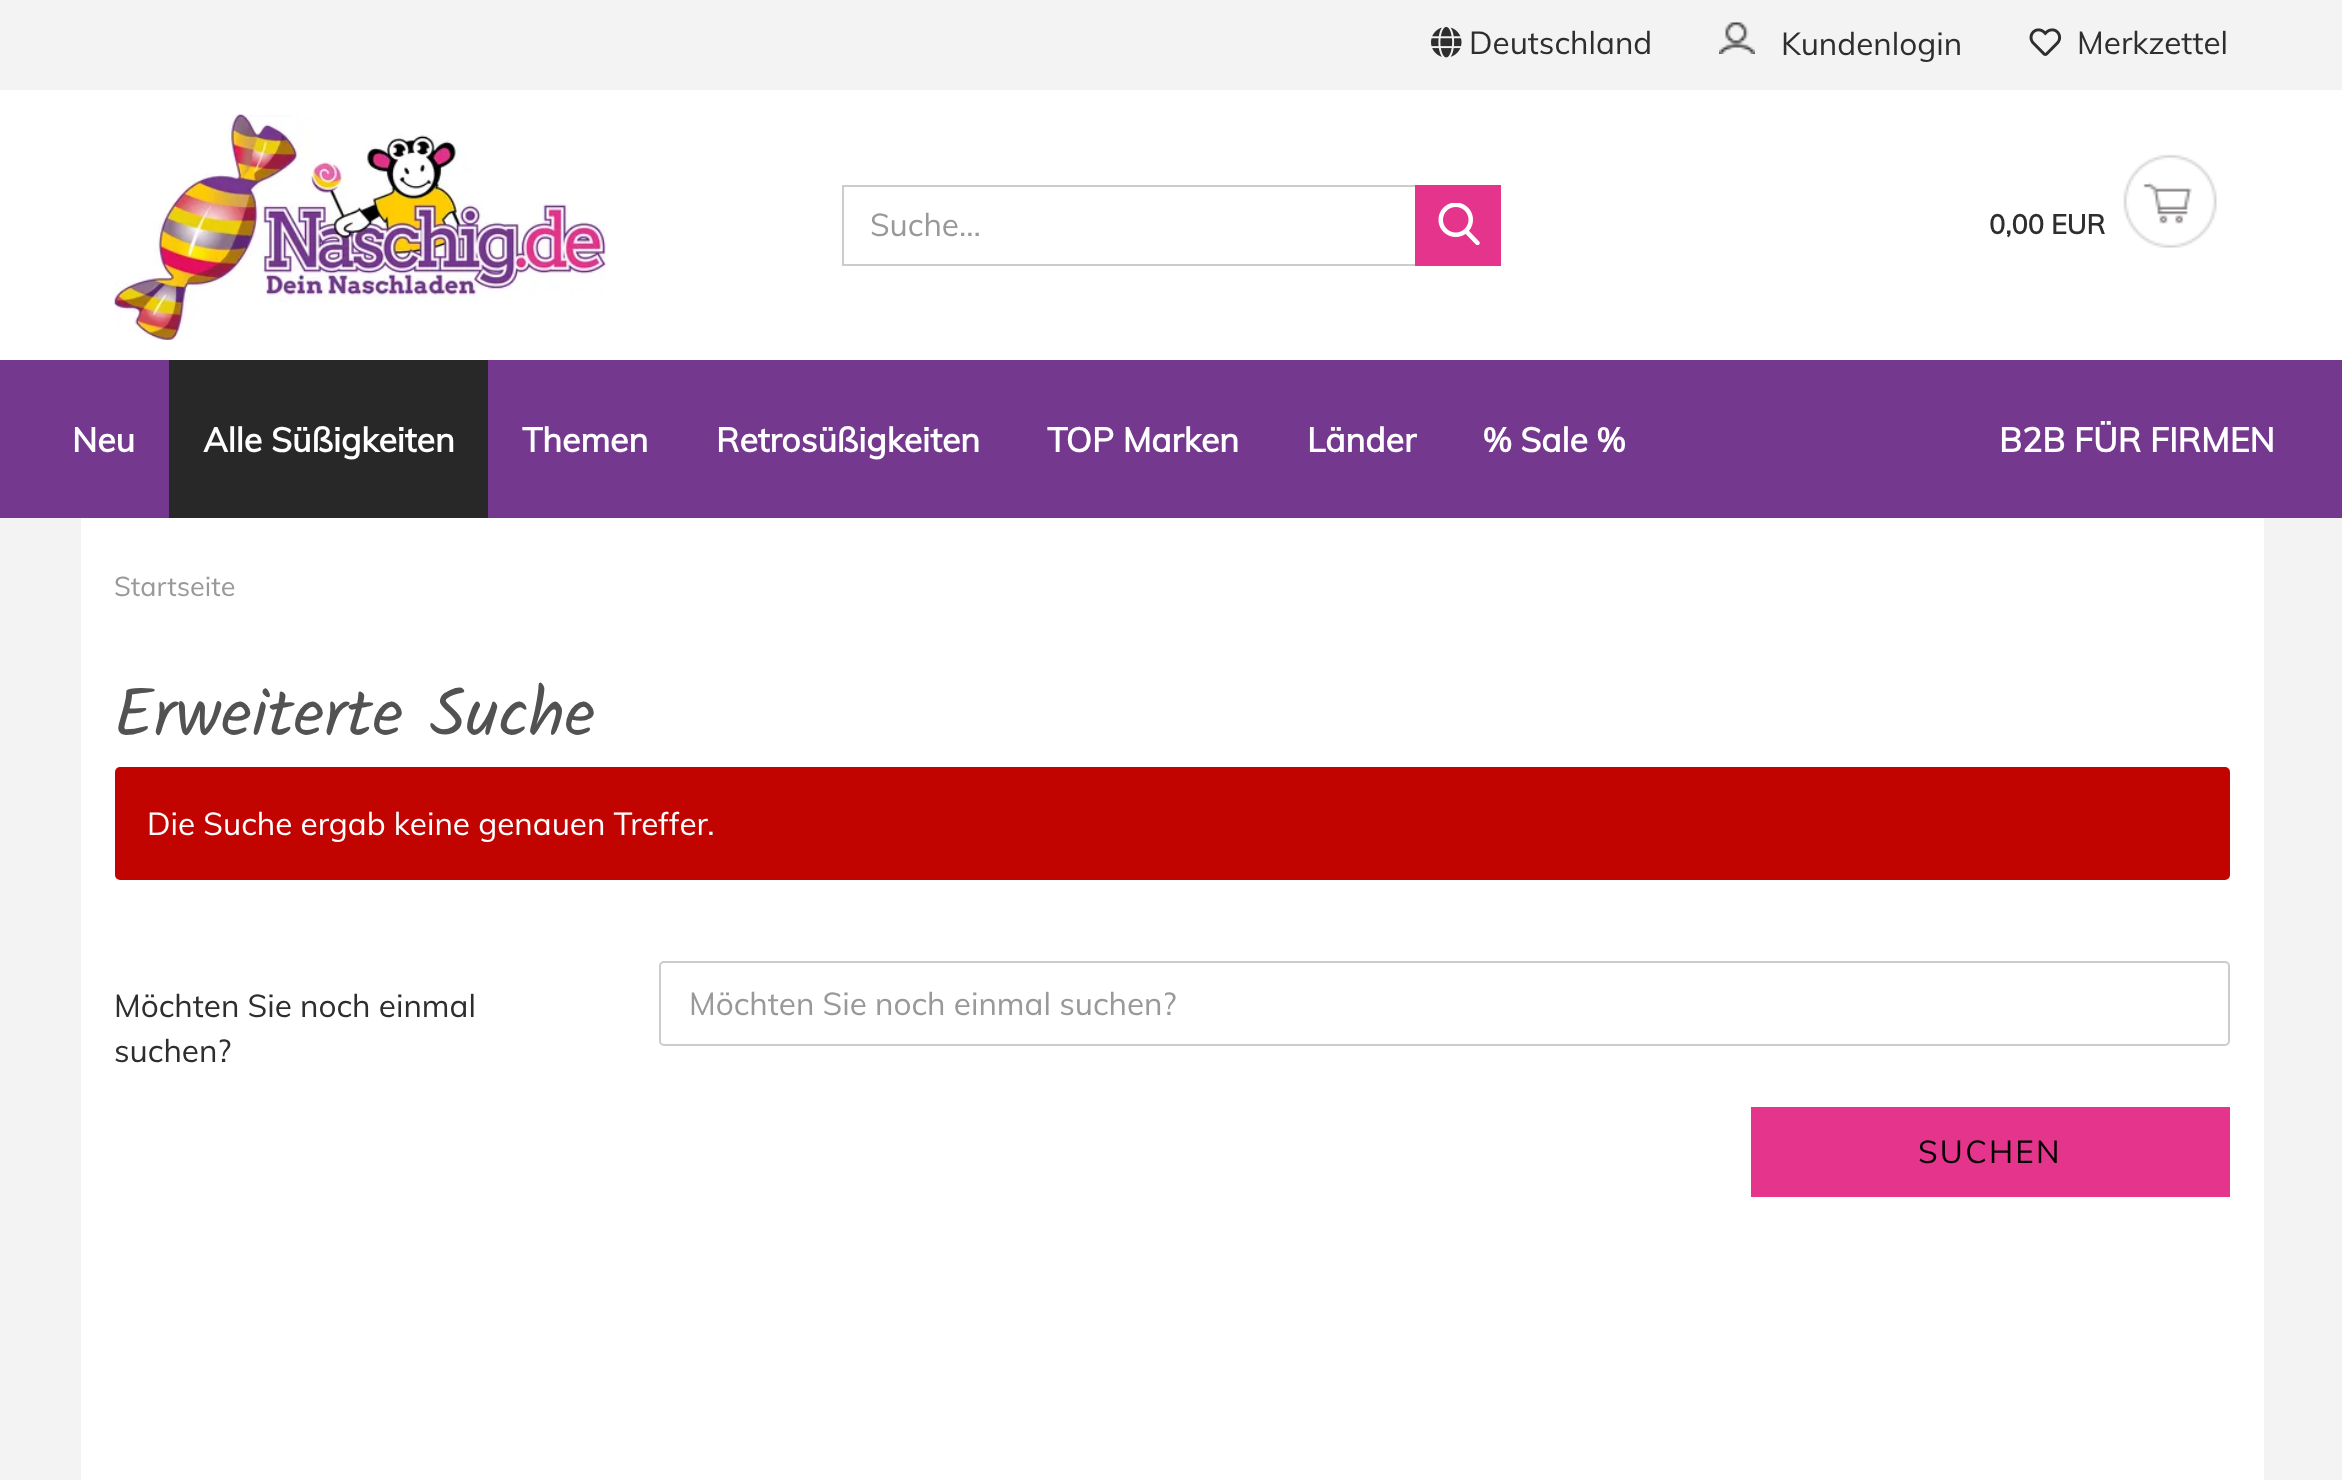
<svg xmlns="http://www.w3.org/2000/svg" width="2342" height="1480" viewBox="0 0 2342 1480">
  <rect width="100%" height="100%" fill="#f3f3f3"/>
  <rect x="0" y="90" width="2342" height="270" fill="#ffffff"/>
  <image x="1431" y="26" width="31" height="32" href="img1.png"/>
  <text x="1469" y="54" font-family="Muli" font-size="31.5" fill="#2e2e2e">Deutschland</text>
  <image x="1719" y="22" width="36" height="32" href="img2.png"/>
  <text x="1781" y="55" font-family="Muli" font-size="31.5" fill="#2e2e2e">Kundenlogin</text>
  <image x="2029" y="28" width="33" height="28" href="img3.png"/>
  <text x="2077" y="54" font-family="Muli" font-size="31.5" fill="#2e2e2e">Merkzettel</text>
  <image x="114" y="114" width="492" height="226" href="img4.png"/>
  <rect x="843" y="186" width="657" height="79" fill="none" stroke="#cccccc" stroke-width="2"/>
  <text x="870" y="236" font-family="Muli" font-size="31.5" fill="#999999">Suche...</text>
  <rect x="1415" y="185" width="86" height="81" fill="#e4348b"/>
  <image x="1438" y="203" width="42" height="42" href="img5.png"/>
  <text x="1989" y="234" font-family="Muli" font-size="27" font-weight="bold" fill="#2e2e2e">0,00 EUR</text>
  <image x="2123" y="154" width="94" height="94" href="img6.png"/>
  <rect x="0" y="360" width="2342" height="158" fill="#74398e"/>
  <text x="72" y="452" font-family="Muli" font-size="33.75" font-weight="bold" fill="#ffffff">Neu</text>
  <rect x="169" y="360" width="319" height="158" fill="#282828"/>
  <text x="203" y="452" font-family="Muli" font-size="33.75" font-weight="bold" fill="#ffffff">Alle Süßigkeiten</text>
  <text x="522" y="452" font-family="Muli" font-size="33.75" font-weight="bold" fill="#ffffff">Themen</text>
  <text x="716" y="452" font-family="Muli" font-size="33.75" font-weight="bold" fill="#ffffff">Retrosüßigkeiten</text>
  <text x="1047" y="452" font-family="Muli" font-size="33.75" font-weight="bold" fill="#ffffff">TOP Marken</text>
  <text x="1307" y="452" font-family="Muli" font-size="33.75" font-weight="bold" fill="#ffffff">Länder</text>
  <text x="1483" y="452" font-family="Muli" font-size="33.75" font-weight="bold" fill="#ffffff">% Sale %</text>
  <text x="1999" y="452" font-family="Muli" font-size="33.75" font-weight="bold" fill="#ffffff">B2B FÜR FIRMEN</text>
  <rect x="81" y="518" width="2183" height="962" fill="#ffffff"/>
  <text x="114" y="596" font-family="Muli" font-size="27" fill="#999999">Startseite</text>
  <text x="114" y="736" font-family="Kalam" font-size="67.5" fill="#525252">Erweiterte Suche</text>
  <rect x="115" y="767" width="2115" height="113" rx="5" fill="#c20400"/>
  <text x="147" y="835" font-family="Muli" font-size="31.5" fill="#ffffff">Die Suche ergab keine genauen Treffer.</text>
  <text x="114" y="1017" font-family="Muli" font-size="31.5" fill="#2e2e2e">Möchten Sie noch einmal</text>
  <text x="114" y="1062" font-family="Muli" font-size="31.5" fill="#2e2e2e">suchen?</text>
  <rect x="660" y="962" width="1569" height="83" rx="4" fill="none" stroke="#cccccc" stroke-width="2"/>
  <text x="689" y="1015" font-family="Muli" font-size="31.5" fill="#999999">Möchten Sie noch einmal suchen?</text>
  <rect x="1751" y="1107" width="479" height="90" fill="#e4348b"/>
  <text x="1918" y="1163" font-family="Muli" font-size="31.5" letter-spacing="2.25" fill="#000000">SUCHEN</text>
</svg>
